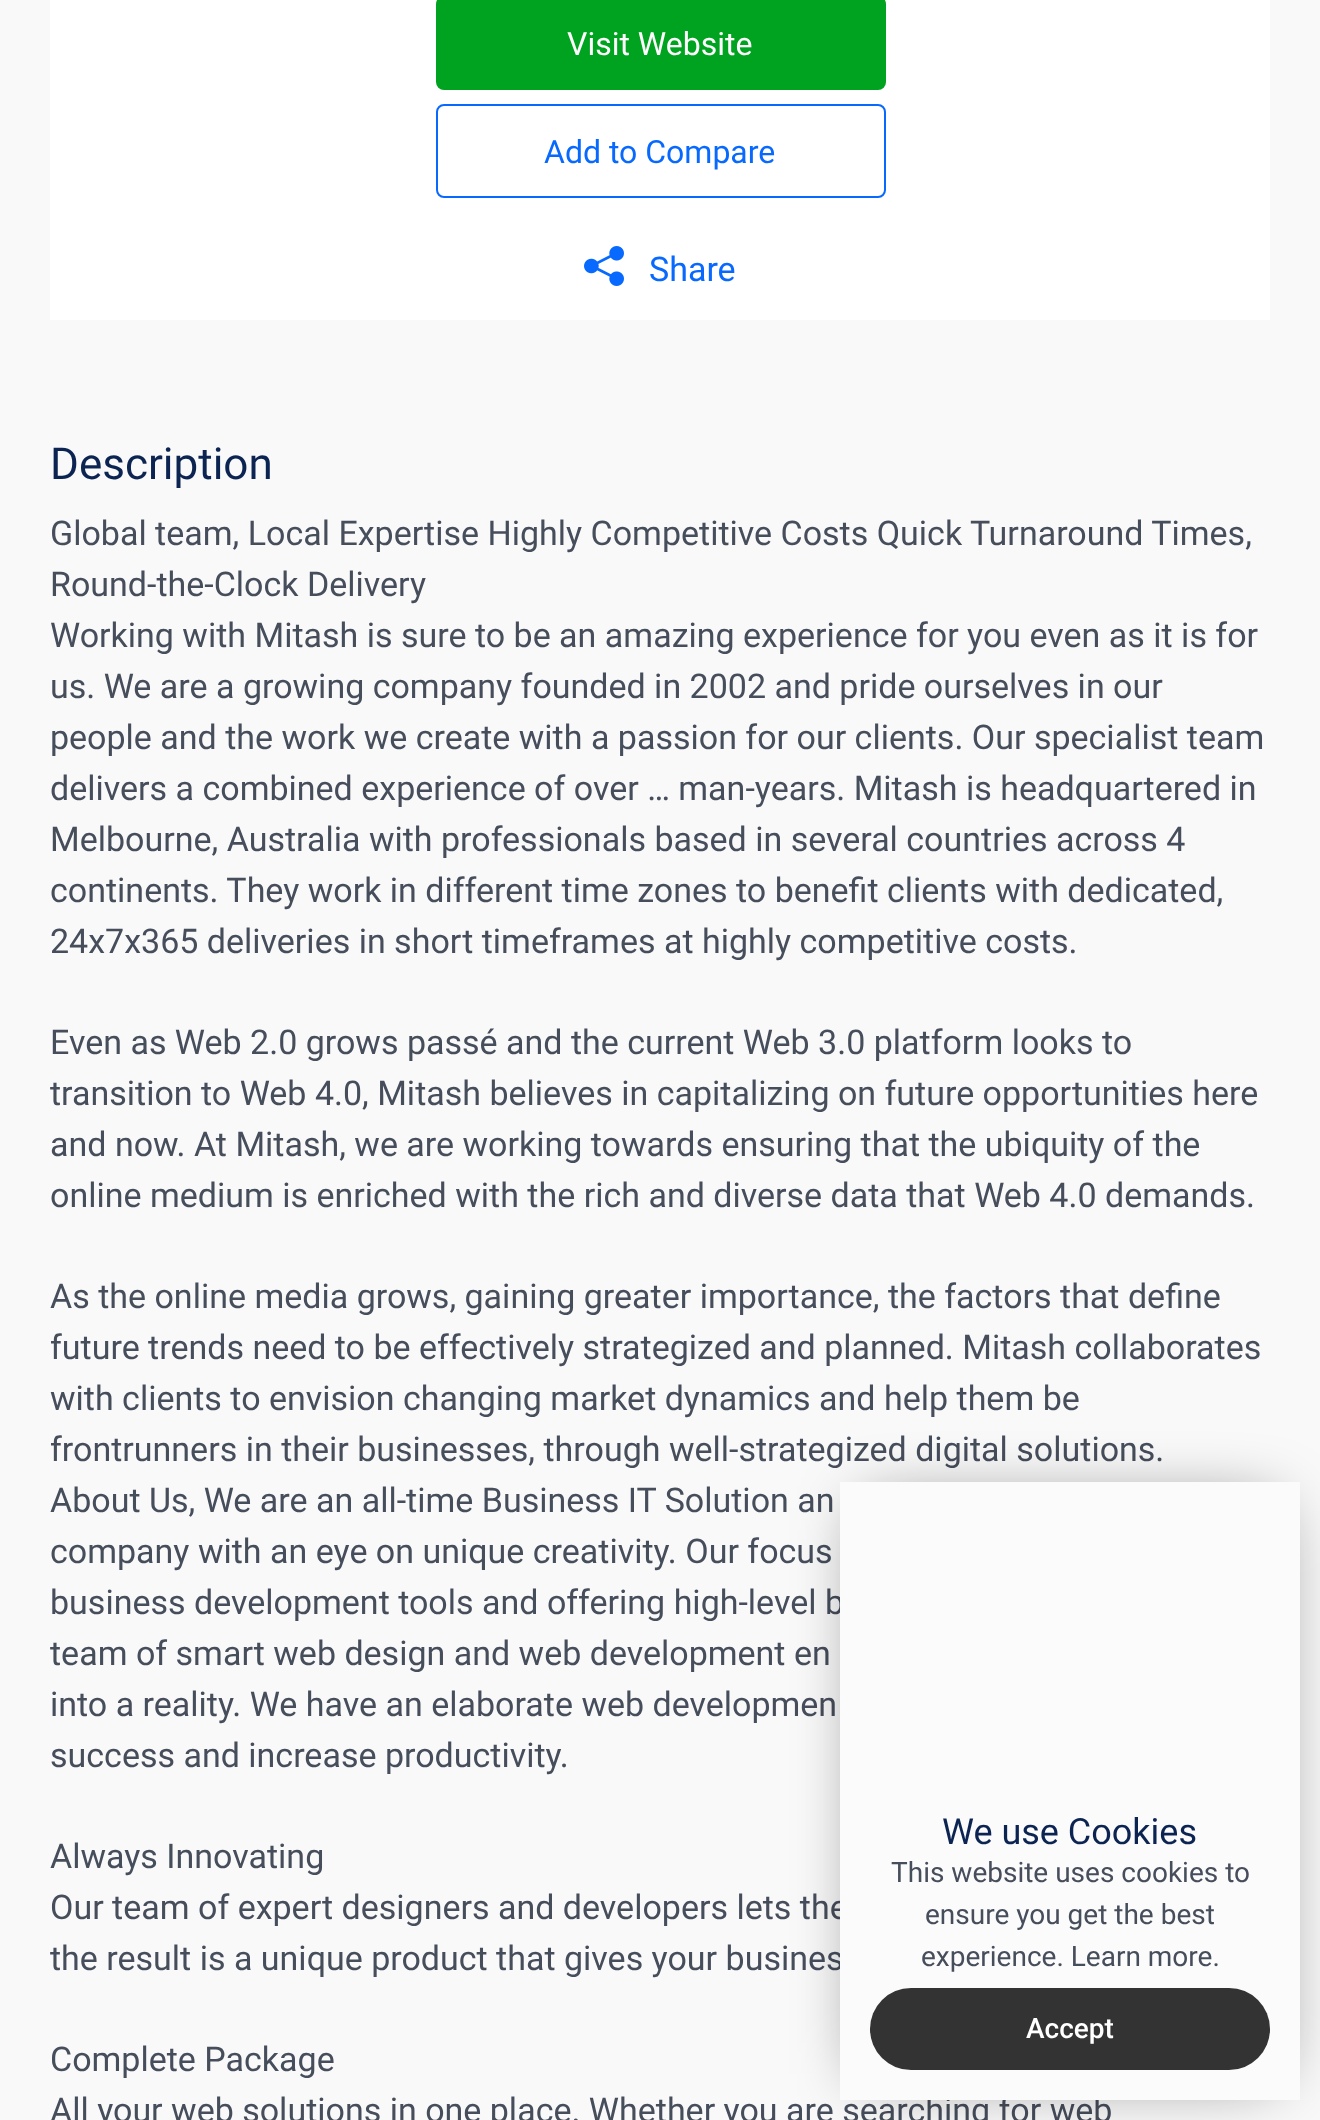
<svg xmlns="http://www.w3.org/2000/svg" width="1320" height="2120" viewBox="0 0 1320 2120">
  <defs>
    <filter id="blur1" x="-50%" y="-200%" width="200%" height="500%"><feGaussianBlur stdDeviation="33"/></filter>
  </defs>
  <rect width="100%" height="100%" fill="#f9f9f9"/>
  <rect x="50" y="0" width="1220" height="320" fill="#ffffff"/>
  <rect x="436" y="-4" width="450" height="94" rx="8" fill="#00a31f"/>
  <text x="567" y="55" font-family="Roboto" font-size="32" fill="#ffffff">Visit Website</text>
  <rect x="437" y="105" width="448" height="92" rx="7" fill="none" stroke="#0769fe" stroke-width="2"/>
  <text x="544" y="163" font-family="Roboto" font-size="32" fill="#0769fe">Add to Compare</text>
  <image x="584" y="246" width="40" height="40" href="img1.png"/>
  <text x="649" y="281" font-family="Roboto" font-size="34" fill="#0769fe">Share</text>
  <text x="50" y="479" font-family="Roboto" font-size="44" fill="#0c2452">Description</text>
  <text x="50" y="545" font-family="Roboto" font-size="34" fill="#464d5b">Global team, Local Expertise Highly Competitive Costs Quick Turnaround Times,</text>
  <text x="50" y="596" font-family="Roboto" font-size="34" fill="#464d5b">Round-the-Clock Delivery</text>
  <text x="50" y="647" font-family="Roboto" font-size="34" fill="#464d5b">Working with Mitash is sure to be an amazing experience for you even as it is for</text>
  <text x="50" y="698" font-family="Roboto" font-size="34" fill="#464d5b">us. We are a growing company founded in 2002 and pride ourselves in our</text>
  <text x="50" y="749" font-family="Roboto" font-size="34" fill="#464d5b">people and the work we create with a passion for our clients. Our specialist team</text>
  <text x="50" y="800" font-family="Roboto" font-size="34" fill="#464d5b">delivers a combined experience of over … man-years. Mitash is headquartered in</text>
  <text x="50" y="851" font-family="Roboto" font-size="34" fill="#464d5b">Melbourne, Australia with professionals based in several countries across 4</text>
  <text x="50" y="902" font-family="Roboto" font-size="34" fill="#464d5b">continents. They work in different time zones to benefit clients with dedicated,</text>
  <text x="50" y="953" font-family="Roboto" font-size="34" fill="#464d5b">24x7x365 deliveries in short timeframes at highly competitive costs.</text>
  <text x="50" y="1054" font-family="Roboto" font-size="34" fill="#464d5b">Even as Web 2.0 grows passé and the current Web 3.0 platform looks to</text>
  <text x="50" y="1105" font-family="Roboto" font-size="34" fill="#464d5b">transition to Web 4.0, Mitash believes in capitalizing on future opportunities here</text>
  <text x="50" y="1156" font-family="Roboto" font-size="34" fill="#464d5b">and now. At Mitash, we are working towards ensuring that the ubiquity of the</text>
  <text x="50" y="1207" font-family="Roboto" font-size="34" fill="#464d5b">online medium is enriched with the rich and diverse data that Web 4.0 demands.</text>
  <text x="50" y="1308" font-family="Roboto" font-size="34" fill="#464d5b">As the online media grows, gaining greater importance, the factors that define</text>
  <text x="50" y="1359" font-family="Roboto" font-size="34" fill="#464d5b">future trends need to be effectively strategized and planned. Mitash collaborates</text>
  <text x="50" y="1410" font-family="Roboto" font-size="34" fill="#464d5b">with clients to envision changing market dynamics and help them be</text>
  <text x="50" y="1461" font-family="Roboto" font-size="34" fill="#464d5b">frontrunners in their businesses, through well-strategized digital solutions.</text>
  <text x="50" y="1512" font-family="Roboto" font-size="34" fill="#464d5b">About Us, We are an all-time Business IT Solution an</text>
  <text x="50" y="1563" font-family="Roboto" font-size="34" fill="#464d5b">company with an eye on unique creativity. Our focus</text>
  <text x="50" y="1614" font-family="Roboto" font-size="34" fill="#464d5b">business development tools and offering high-level b</text>
  <text x="50" y="1665" font-family="Roboto" font-size="34" fill="#464d5b">team of smart web design and web development en</text>
  <text x="50" y="1716" font-family="Roboto" font-size="34" fill="#464d5b">into a reality. We have an elaborate web developmen</text>
  <text x="50" y="1767" font-family="Roboto" font-size="34" fill="#464d5b">success and increase productivity.</text>
  <text x="50" y="1868" font-family="Roboto" font-size="34" fill="#464d5b">Always Innovating</text>
  <text x="50" y="1919" font-family="Roboto" font-size="34" fill="#464d5b">Our team of expert designers and developers lets the</text>
  <text x="50" y="1970" font-family="Roboto" font-size="34" fill="#464d5b">the result is a unique product that gives your busines</text>
  <text x="50" y="2071" font-family="Roboto" font-size="34" fill="#464d5b">Complete Package</text>
  <text x="50" y="2122" font-family="Roboto" font-size="34" fill="#464d5b">All your web solutions in one place. Whether you are searching for web</text>
  <rect x="866" y="1508" width="408" height="566" fill="#000000" fill-opacity="0.6" filter="url(#blur1)"/>
  <rect x="840" y="1482" width="460" height="618" fill="#fbfbfb"/>
  <text x="942" y="1844" font-family="Roboto" font-size="36" fill="#0c2452">We use Cookies</text>
  <text x="891" y="1882" font-family="Roboto" font-size="28" fill="#464d5b">This website uses cookies to</text>
  <text x="925" y="1924" font-family="Roboto" font-size="28" fill="#464d5b">ensure you get the best</text>
  <text x="921" y="1966" font-family="Roboto" font-size="28" fill="#464d5b">experience. Learn more.</text>
  <rect x="870" y="1988" width="400" height="82" rx="41" fill="#333333"/>
  <text x="1026" y="2038" font-family="Roboto" font-size="28" font-weight="500" fill="#ffffff">Accept</text>
</svg>
